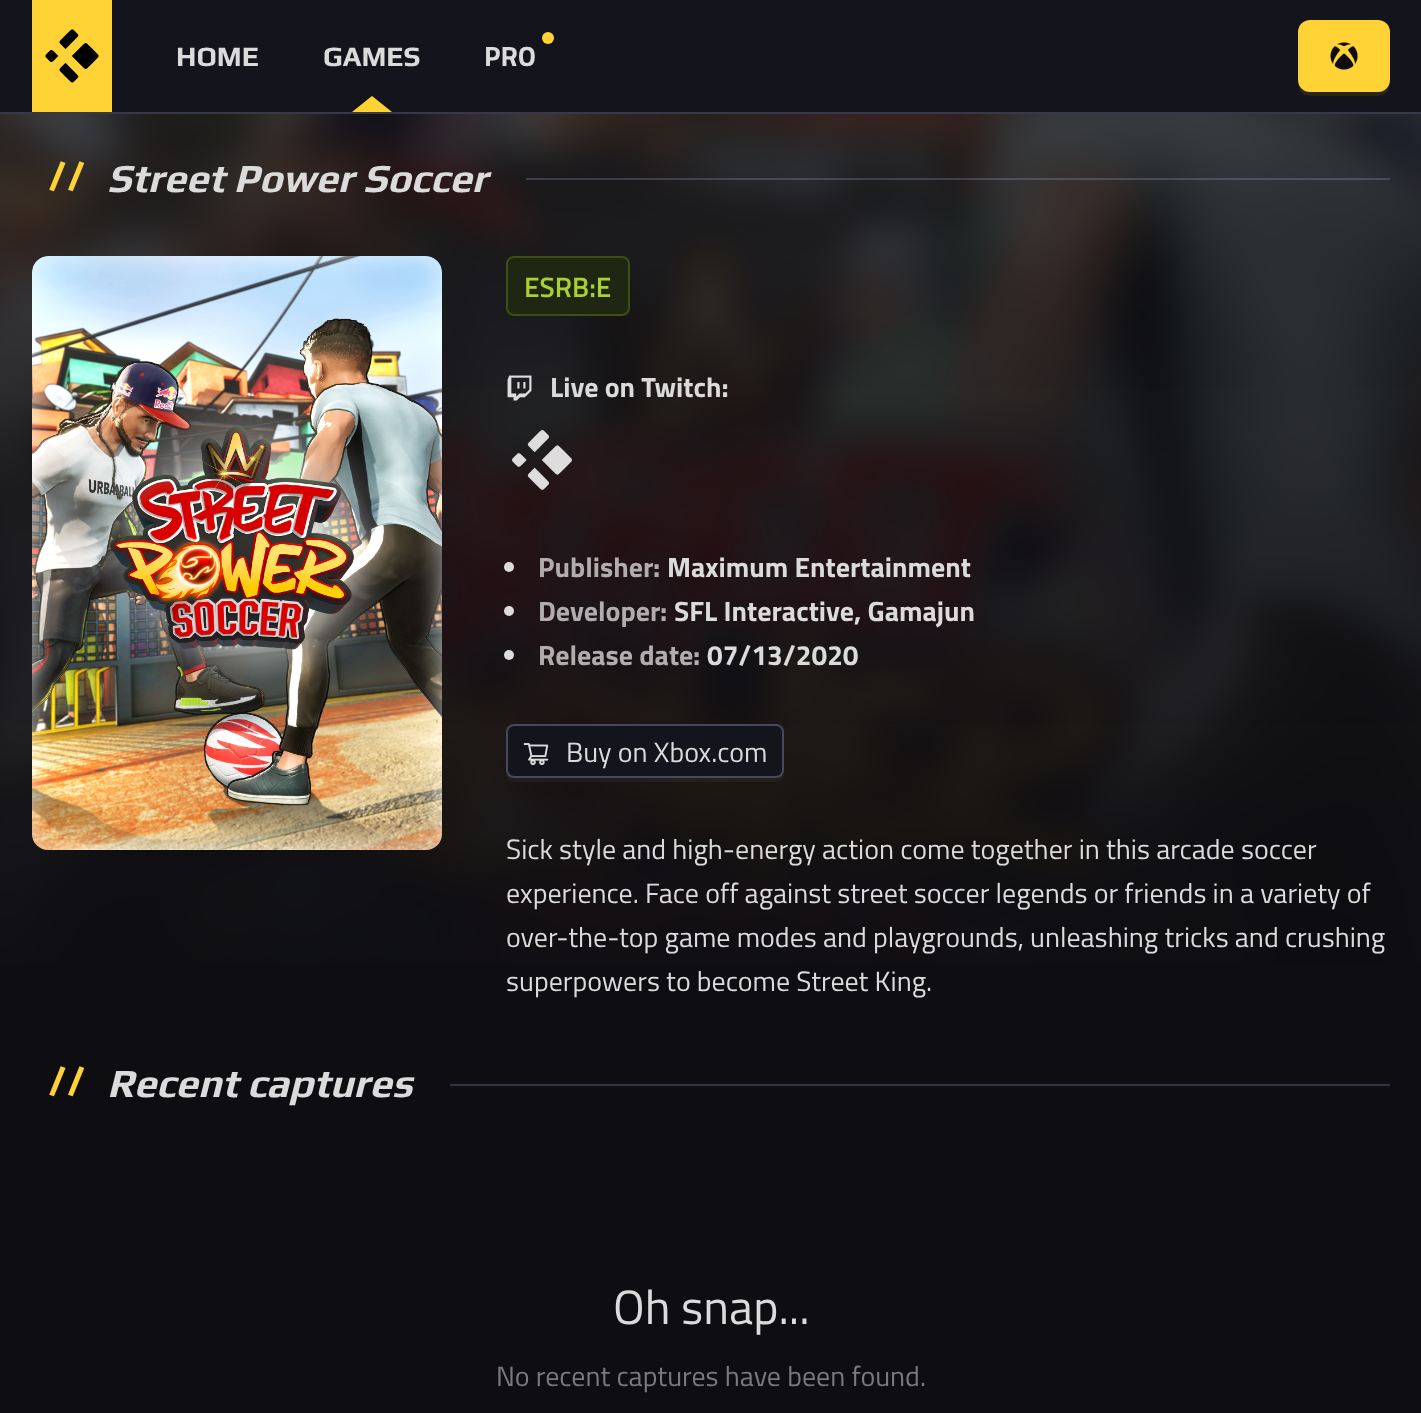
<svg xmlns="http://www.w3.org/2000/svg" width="1421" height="1413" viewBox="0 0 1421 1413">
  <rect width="100%" height="100%" fill="#0e0e12"/>
  <rect x="0" y="0" width="1421" height="112" fill="#14141c"/>
  <rect x="0" y="112" width="1421" height="2" fill="#383848"/>
  <rect x="32" y="0" width="80" height="112" fill="#ffd335"/>
  <image x="45" y="29" width="54" height="54" href="img1.png"/>
  <text x="176" y="66" font-family="Play" font-size="28" font-weight="bold" fill="#dbdbdb">HOME</text>
  <text x="323" y="66" font-family="Play" font-size="28" font-weight="bold" fill="#dbdbdb">GAMES</text>
  <path d="M392 112H352L372 96Z" fill="#ffd335"/>
  <circle cx="548" cy="38" r="6" fill="#ffd335"/>
  <text x="484" y="66" font-family="Titillium Web" font-size="28" font-weight="bold" fill="#dbdbdb">PRO</text>
  <path d="M1298 80C1298 97 1307 96 1321 96H1367C1381 96 1390 97 1390 80C1390 87 1385 92 1378 92H1310C1303 92 1298 87 1298 80Z" fill="#2c2514"/>
  <rect x="1298" y="20" width="92" height="72" rx="12" fill="#ffd335"/>
  <image x="1330" y="42" width="28" height="28" href="img2.png"/>
  <image x="0" y="114" width="1421" height="849" href="img7.png"/>
  <text x="48" y="190" font-family="Titillium Web" font-size="40" font-weight="bold" letter-spacing="12" fill="#ffd335">//</text>
  <text x="107" y="192" font-family="Play" font-size="40" font-weight="bold" font-style="italic" fill="#dbdbdb">Street Power Soccer</text>
  <rect x="526" y="178" width="864" height="2" fill="#c8c8f8" fill-opacity="0.2"/>
  <rect x="32" y="256" width="410" height="594" rx="16" fill="#14141c"/>
  <rect x="32" y="256" width="410" height="594" rx="16" fill="#ffffff" fill-opacity="0.08"/>
  <image x="32" y="256" width="410" height="594" href="img3.png"/>
  <rect x="507" y="257" width="122" height="58" rx="7" fill="#1f2611" stroke="#3e4f13" stroke-width="2"/>
  <text x="524" y="297" font-family="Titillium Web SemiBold" font-size="28" font-weight="600" fill="#a9d134">ESRB:E</text>
  <image x="507" y="375" width="25" height="26" href="img4.png"/>
  <text x="550" y="397" font-family="Titillium Web" font-size="28" font-weight="bold" fill="#dbdbdb">Live on Twitch:</text>
  <image x="512" y="430" width="60" height="60" href="img5.png"/>
  <circle cx="509" cy="567" r="5" fill="#dedbdc"/>
  <text x="538" y="577" font-family="Titillium Web" font-size="28" font-weight="bold" fill="#b1acae">Publisher</text>
  <text x="653" y="577" font-family="Titillium Web" font-size="28" font-weight="bold" fill="#b1acae">:</text>
  <text x="667" y="577" font-family="Titillium Web" font-size="28" font-weight="bold" fill="#dbdbdb">Maximum Entertainment</text>
  <circle cx="509" cy="611" r="5" fill="#dedcdc"/>
  <text x="538" y="621" font-family="Titillium Web" font-size="28" font-weight="bold" fill="#b1acae">Developer</text>
  <text x="660" y="621" font-family="Titillium Web" font-size="28" font-weight="bold" fill="#b1acae">:</text>
  <text x="674" y="621" font-family="Titillium Web" font-size="28" font-weight="bold" fill="#dbdbdb">SFL Interactive, Gamajun</text>
  <circle cx="509" cy="655" r="5" fill="#dcdcdc"/>
  <text x="538" y="665" font-family="Titillium Web" font-size="28" font-weight="bold" fill="#b1acae">Release date</text>
  <text x="693" y="665" font-family="Titillium Web" font-size="28" font-weight="bold" fill="#b1acae">:</text>
  <text x="707" y="665" font-family="Titillium Web" font-size="28" font-weight="bold" fill="#dbdbdb">07/13/2020</text>
  <path d="M506 770V774C506 778 510 782 514 782H776C780 782 784 778 784 774V770C784 774 780 778 776 778H514C510 778 506 774 506 770Z" fill="#ffffff" fill-opacity="0.04"/>
  <rect x="507" y="725" width="276" height="52" rx="7" fill="#14141c" stroke="#48485d" stroke-width="2"/>
  <image x="523" y="743" width="26" height="23" href="img6.png"/>
  <text x="566" y="762" font-family="Titillium Web" font-size="28" fill="#dbdbdb">Buy on Xbox.com</text>
  <text x="506" y="859" font-family="Titillium Web" font-size="28" fill="#dbdbdb">Sick style and high-energy action come together in this arcade soccer</text>
  <text x="506" y="903" font-family="Titillium Web" font-size="28" fill="#dbdbdb">experience. Face off against street soccer legends or friends in a variety of</text>
  <text x="506" y="947" font-family="Titillium Web" font-size="28" fill="#dbdbdb">over-the-top game modes and playgrounds, unleashing tricks and crushing</text>
  <text x="506" y="991" font-family="Titillium Web" font-size="28" fill="#dbdbdb">superpowers to become Street King.</text>
  <text x="48" y="1095" font-family="Titillium Web" font-size="40" font-weight="bold" letter-spacing="12" fill="#ffd335">//</text>
  <text x="107" y="1097" font-family="Play" font-size="40" font-weight="bold" font-style="italic" fill="#dbdbdb">Recent captures</text>
  <rect x="450" y="1084" width="940" height="2" fill="#333340"/>
  <text x="613" y="1324" font-family="Titillium Web" font-size="48" fill="#dbdbdb">Oh snap...</text>
  <text x="496" y="1386" font-family="Titillium Web" font-size="28" fill="#7a7a7d">No recent captures have been found.</text>
</svg>
